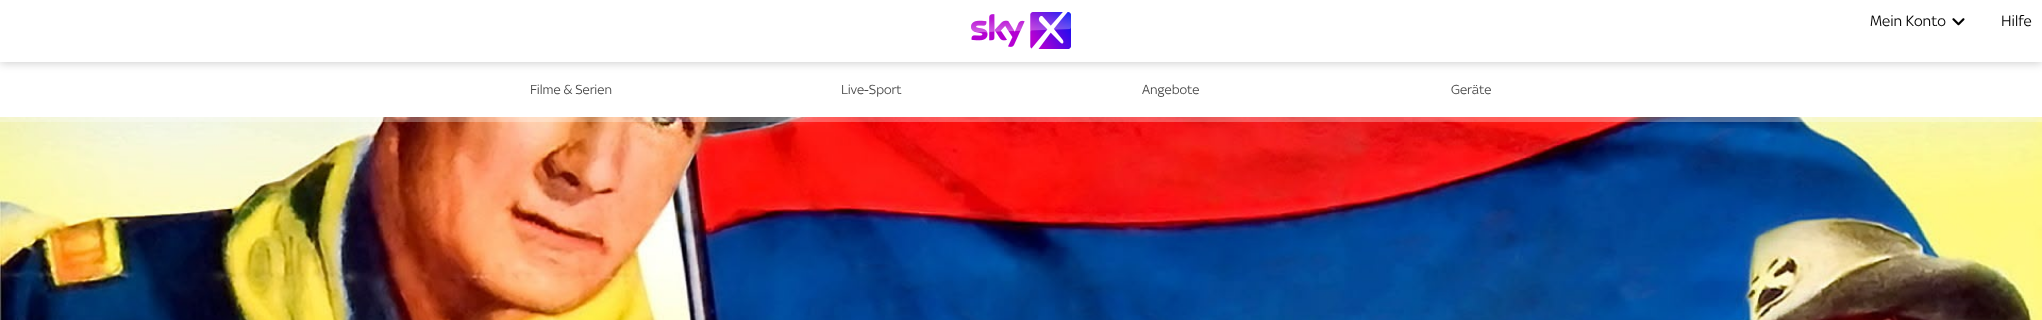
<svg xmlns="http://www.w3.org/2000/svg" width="2042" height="320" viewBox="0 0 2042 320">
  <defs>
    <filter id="blur1" x="-50%" y="-200%" width="200%" height="500%"><feGaussianBlur stdDeviation="5"/></filter>
  </defs>
  <rect width="100%" height="100%" fill="#ffffff"/>
  <rect x="0" y="1" width="2042" height="62" fill="#000000" fill-opacity="0.2" filter="url(#blur1)"/>
  <rect x="0" y="0" width="2042" height="62" fill="#ffffff"/>
  <image x="971" y="12" width="100" height="37" href="img1.png"/>
  <text x="1870" y="26" font-family="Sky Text" font-size="16" fill="#000000">Mein Konto</text>
  <image x="1952" y="18" width="13" height="8" href="img2.png"/>
  <text x="2001" y="26" font-family="Sky Text" font-size="16" fill="#000000">Hilfe</text>
  <text x="530" y="94" font-family="Sky Text" font-size="14" fill="#4a4a4a">Filme &amp; Serien</text>
  <text x="841" y="94" font-family="Sky Text" font-size="14" fill="#4a4a4a">Live-Sport</text>
  <text x="1142" y="94" font-family="Sky Text" font-size="14" fill="#4a4a4a">Angebote</text>
  <text x="1451" y="94" font-family="Sky Text" font-size="14" fill="#4a4a4a">Geräte</text>
  <image x="0" y="117" width="2042" height="203" href="img3.png"/>
  <rect x="0" y="117" width="2042" height="5" fill="#ffffff" fill-opacity="0.3"/>
</svg>
